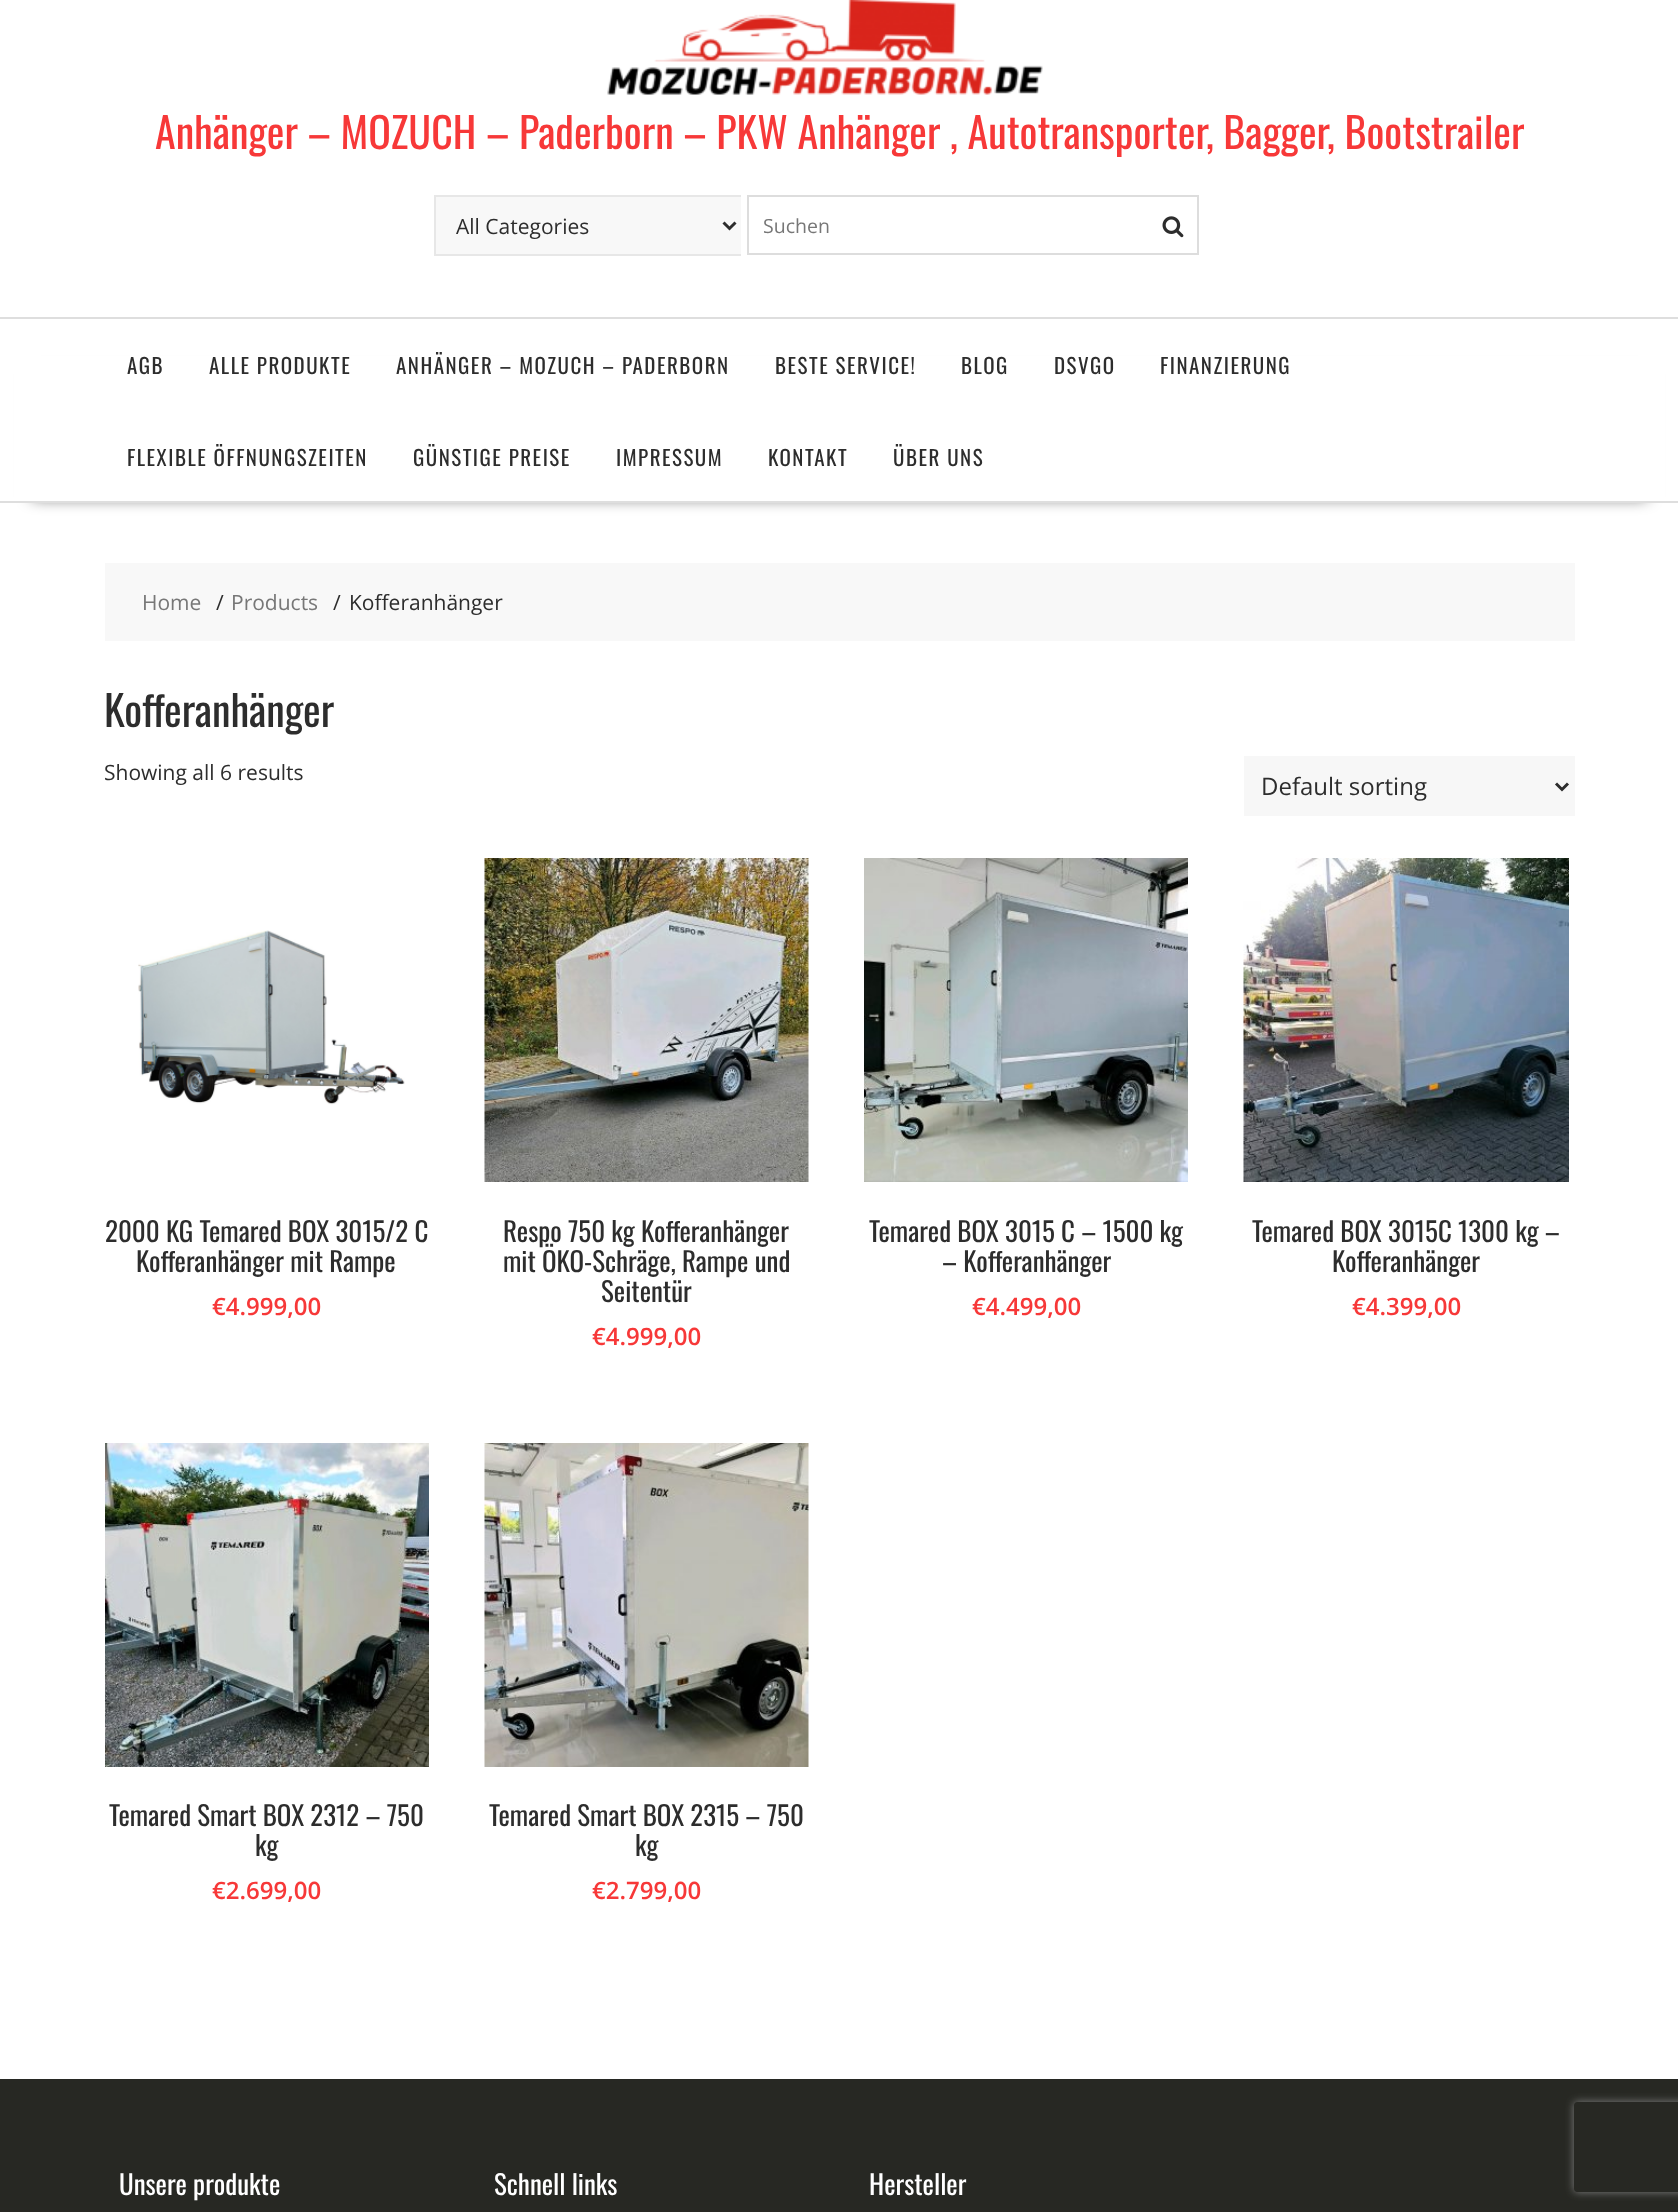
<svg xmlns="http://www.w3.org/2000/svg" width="1678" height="2212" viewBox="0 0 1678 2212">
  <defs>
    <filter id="blur1" x="-50%" y="-200%" width="200%" height="500%"><feGaussianBlur stdDeviation="8"/></filter>
    <clipPath id="clip1"><path d="M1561 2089H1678V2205H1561ZM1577 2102H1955C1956.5 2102 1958 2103.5 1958 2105V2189C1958 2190.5 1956.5 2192 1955 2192H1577C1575.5 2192 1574 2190.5 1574 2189V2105C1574 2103.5 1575.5 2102 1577 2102Z" clip-rule="evenodd"/></clipPath>
    <filter id="blur2" x="-50%" y="-200%" width="200%" height="500%"><feGaussianBlur stdDeviation="4"/></filter>
  </defs>
  <rect width="100%" height="100%" fill="#ffffff"/>
  <image x="607" y="0" width="436" height="95" href="img1.png"/>
  <text x="155" y="149" font-family="Oswald" font-size="42" fill="#f73838">Anhänger – MOZUCH – Paderborn – PKW Anhänger , Autotransporter, Bagger, Bootstrailer</text>
  <rect x="436" y="197" width="305" height="57" fill="#f8f8f8"/>
  <rect x="434" y="195" width="307" height="2" fill="#e7e7e7"/>
  <rect x="434" y="254" width="307" height="2" fill="#e7e7e7"/>
  <rect x="434" y="195" width="2" height="60" fill="#e7e7e7"/>
  <path d="M723.5 222.5L729.5 228.5L735.5 222.5" fill="none" stroke="#2d2d2d" stroke-width="3"/>
  <text x="456" y="234" font-family="Open Sans" font-size="21" fill="#2d2d2d">All Categories</text>
  <rect x="748" y="196" width="450" height="58" fill="none" stroke="#dddddd" stroke-width="2"/>
  <text x="763" y="233" font-family="Open Sans" font-size="19.5" fill="#777777">Suchen</text>
  <image x="1162" y="216" width="22" height="22" href="img2.png"/>
  <rect x="32" y="374" width="1615" height="123" fill="#000000" fill-opacity="0.75" filter="url(#blur1)"/>
  <rect x="14" y="356" width="1651" height="145" fill="#ffffff"/>
  <rect x="0" y="317" width="1678" height="2" fill="#dedede"/>
  <rect x="0" y="501" width="1678" height="2" fill="#dedede"/>
  <text x="127" y="374" font-family="Oswald" font-size="21" letter-spacing="1.5" fill="#2d2d2d">AGB</text>
  <text x="209" y="374" font-family="Oswald" font-size="21" letter-spacing="1.5" fill="#2d2d2d">ALLE PRODUKTE</text>
  <text x="396" y="374" font-family="Oswald" font-size="21" letter-spacing="1.5" fill="#2d2d2d">ANHÄNGER – MOZUCH – PADERBORN</text>
  <text x="775" y="374" font-family="Oswald" font-size="21" letter-spacing="1.5" fill="#2d2d2d">BESTE SERVICE!</text>
  <text x="961" y="374" font-family="Oswald" font-size="21" letter-spacing="1.5" fill="#2d2d2d">BLOG</text>
  <text x="1054" y="374" font-family="Oswald" font-size="21" letter-spacing="1.5" fill="#2d2d2d">DSVGO</text>
  <text x="1160" y="374" font-family="Oswald" font-size="21" letter-spacing="1.5" fill="#2d2d2d">FINANZIERUNG</text>
  <text x="127" y="466" font-family="Oswald" font-size="21" letter-spacing="1.5" fill="#2d2d2d">FLEXIBLE ÖFFNUNGSZEITEN</text>
  <text x="413" y="466" font-family="Oswald" font-size="21" letter-spacing="1.5" fill="#2d2d2d">GÜNSTIGE PREISE</text>
  <text x="616" y="466" font-family="Oswald" font-size="21" letter-spacing="1.5" fill="#2d2d2d">IMPRESSUM</text>
  <text x="768" y="466" font-family="Oswald" font-size="21" letter-spacing="1.5" fill="#2d2d2d">KONTAKT</text>
  <text x="893" y="466" font-family="Oswald" font-size="21" letter-spacing="1.5" fill="#2d2d2d">ÜBER UNS</text>
  <rect x="105" y="563" width="1470" height="78" fill="#f8f8f8"/>
  <text x="142" y="610" font-family="Open Sans" font-size="21" fill="#777777">Home</text>
  <text x="216" y="610" font-family="Open Sans" font-size="21" fill="#2d2d2d">/</text>
  <text x="231" y="610" font-family="Open Sans" font-size="21" fill="#777777">Products</text>
  <text x="333" y="610" font-family="Open Sans" font-size="21" fill="#2d2d2d">/</text>
  <text x="349" y="610" font-family="Open Sans" font-size="21" fill="#2d2d2d">Kofferanhänger</text>
  <text x="104" y="727" font-family="Oswald" font-size="42" fill="#2d2d2d">Kofferanhänger</text>
  <text x="104" y="780" font-family="Open Sans" font-size="21" fill="#2d2d2d">Showing all 6 results</text>
  <rect x="1244" y="756" width="331" height="60" fill="#f7f7f7"/>
  <path d="M1556 783.5L1562 789.5L1568 783.5" fill="none" stroke="#2d2d2d" stroke-width="3"/>
  <text x="1261" y="795" font-family="Open Sans" font-size="24" fill="#2d2d2d">Default sorting</text>
  <image x="138" y="930" width="267" height="175" href="img3.png"/>
  <text x="105" y="1242" font-family="Oswald" font-size="27" fill="#2d2d2d">2000 KG Temared BOX 3015/2 C</text>
  <text x="136" y="1272" font-family="Oswald" font-size="27" fill="#2d2d2d">Kofferanhänger mit Rampe</text>
  <text x="212" y="1315" font-family="Open Sans" font-size="24" font-weight="600" fill="#f73838">€4.999,00</text>
  <image x="484" y="858" width="325" height="324" href="img4.png"/>
  <text x="503" y="1242" font-family="Oswald" font-size="27" fill="#2d2d2d">Respo 750 kg Kofferanhänger</text>
  <text x="503" y="1272" font-family="Oswald" font-size="27" fill="#2d2d2d">mit ÖKO-Schräge, Rampe und</text>
  <text x="601" y="1302" font-family="Oswald" font-size="27" fill="#2d2d2d">Seitentür</text>
  <text x="592" y="1345" font-family="Open Sans" font-size="24" font-weight="600" fill="#f73838">€4.999,00</text>
  <image x="864" y="858" width="324" height="324" href="img5.png"/>
  <text x="869" y="1242" font-family="Oswald" font-size="27" fill="#2d2d2d">Temared BOX 3015 C – 1500 kg</text>
  <text x="942" y="1272" font-family="Oswald" font-size="27" fill="#2d2d2d">– Kofferanhänger</text>
  <text x="972" y="1315" font-family="Open Sans" font-size="24" font-weight="600" fill="#f73838">€4.499,00</text>
  <image x="1243" y="858" width="326" height="324" href="img6.png"/>
  <text x="1252" y="1242" font-family="Oswald" font-size="27" fill="#2d2d2d">Temared BOX 3015C 1300 kg –</text>
  <text x="1332" y="1272" font-family="Oswald" font-size="27" fill="#2d2d2d">Kofferanhänger</text>
  <text x="1352" y="1315" font-family="Open Sans" font-size="24" font-weight="600" fill="#f73838">€4.399,00</text>
  <image x="105" y="1443" width="324" height="324" href="img7.png"/>
  <text x="109" y="1826" font-family="Oswald" font-size="27" fill="#2d2d2d">Temared Smart BOX 2312 – 750</text>
  <text x="255" y="1856" font-family="Oswald" font-size="27" fill="#2d2d2d">kg</text>
  <text x="212" y="1899" font-family="Open Sans" font-size="24" font-weight="600" fill="#f73838">€2.699,00</text>
  <image x="484" y="1443" width="325" height="324" href="img8.png"/>
  <text x="489" y="1826" font-family="Oswald" font-size="27" fill="#2d2d2d">Temared Smart BOX 2315 – 750</text>
  <text x="635" y="1856" font-family="Oswald" font-size="27" fill="#2d2d2d">kg</text>
  <text x="592" y="1899" font-family="Open Sans" font-size="24" font-weight="600" fill="#f73838">€2.799,00</text>
  <rect x="0" y="2079" width="1678" height="133" fill="#272823"/>
  <text x="119" y="2195" font-family="Oswald" font-size="27" fill="#ffffff">Unsere produkte</text>
  <text x="494" y="2195" font-family="Oswald" font-size="27" fill="#ffffff">Schnell links</text>
  <text x="869" y="2195" font-family="Oswald" font-size="27" fill="#ffffff">Hersteller</text>
  <g clip-path="url(#clip1)">
    <rect x="1574" y="2102" width="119" height="90" rx="3" fill="#808080" filter="url(#blur2)"/>
  </g>
</svg>
